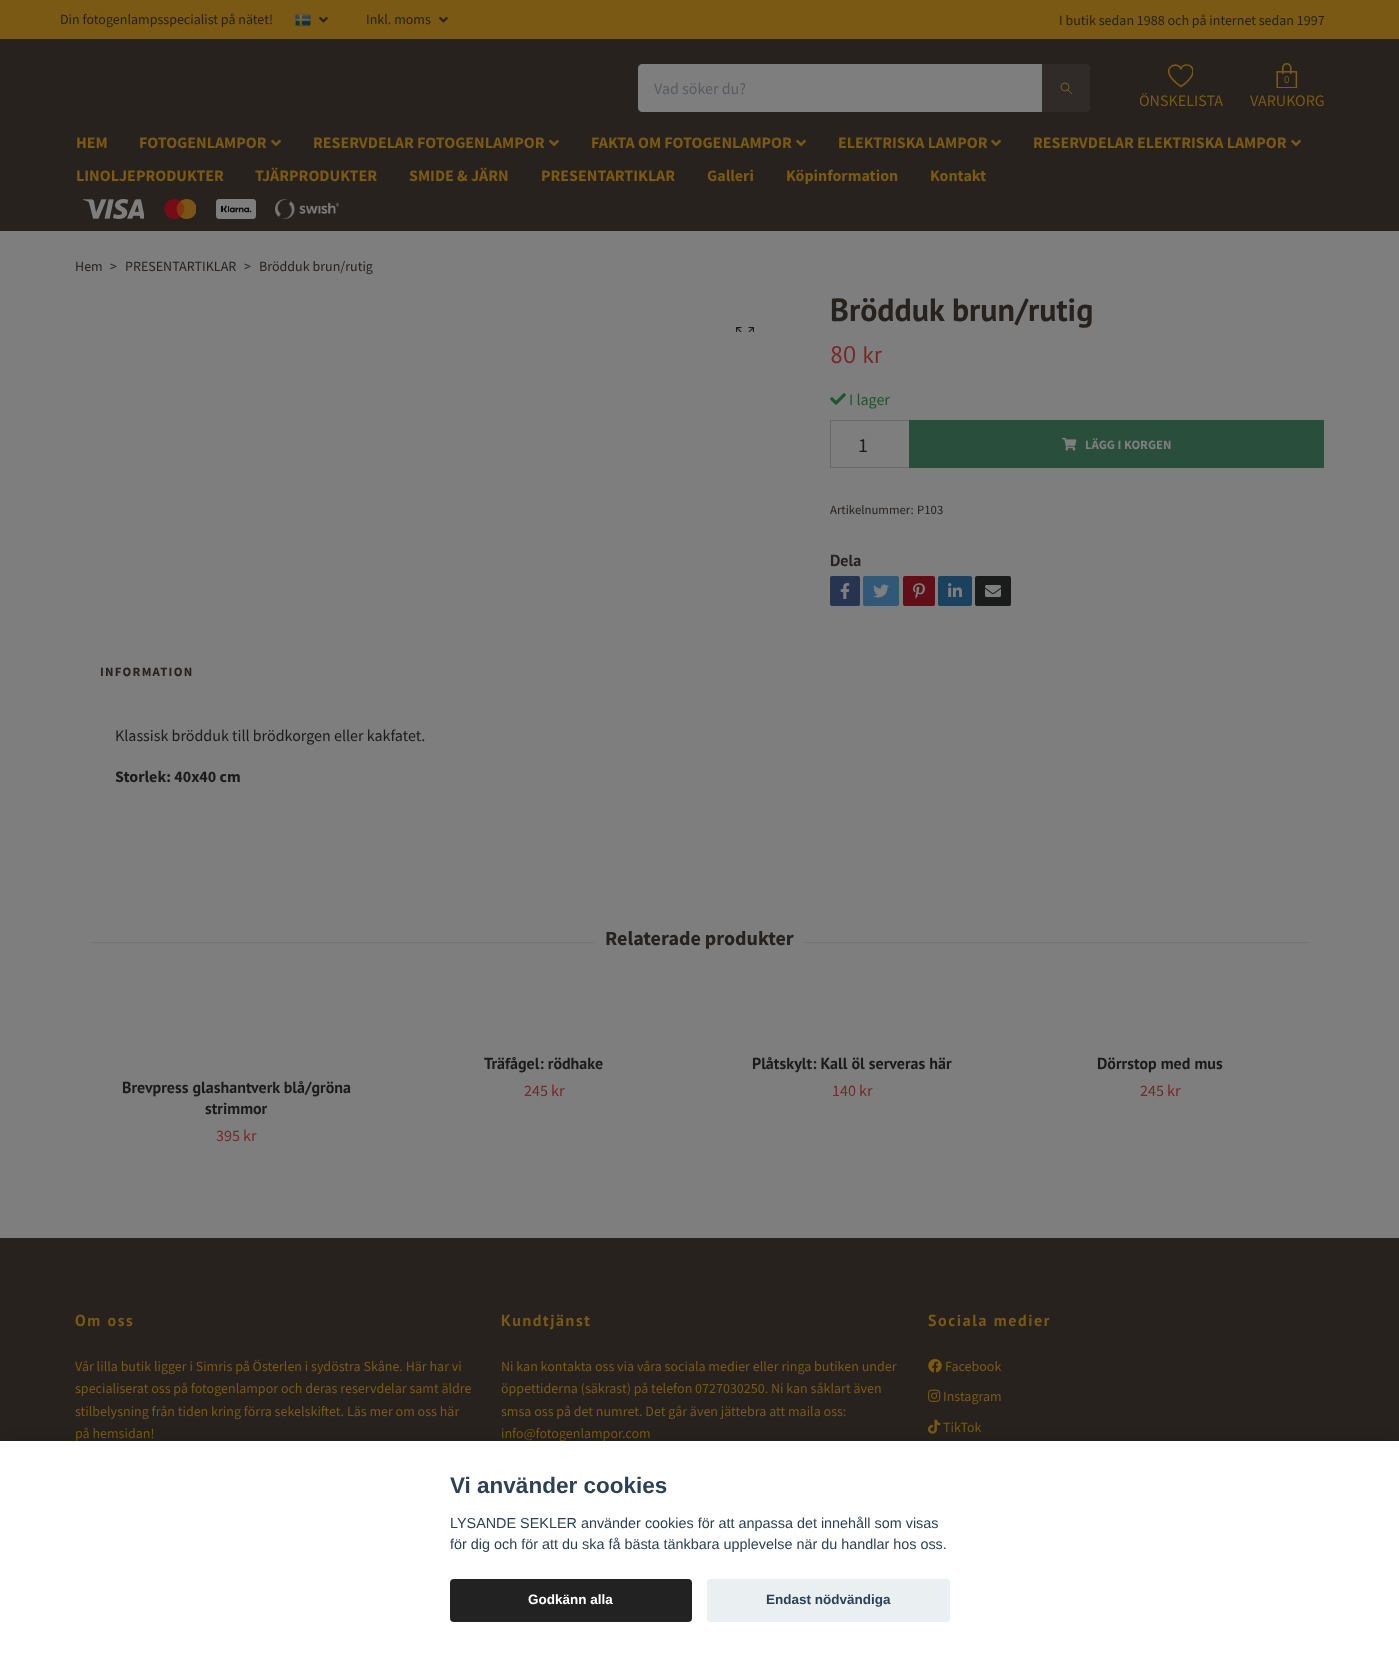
<svg xmlns="http://www.w3.org/2000/svg" width="1399" height="1654" viewBox="0 0 1399 1654">
  <defs>
    <clipPath id="clip1"><rect x="1168" y="63" width="25" height="25"/></clipPath>
    <filter id="blur1" x="-50%" y="-200%" width="200%" height="500%"><feGaussianBlur stdDeviation="15"/></filter>
  </defs>
  <rect width="100%" height="100%" fill="#7e7e7f"/>
  <rect x="0" y="0" width="1399" height="39" fill="#7a5915"/>
  <text x="60" y="24" font-family="Source Sans Pro" font-size="14" fill="#27221e">Din fotogenlampsspecialist på nätet!</text>
  <image x="295" y="14" width="16" height="13" href="img1.png"/>
  <image x="319" y="17" width="9" height="6" href="img2.png"/>
  <text x="366" y="24" font-family="Source Sans Pro" font-size="14" fill="#27221e">Inkl. moms</text>
  <image x="439" y="17" width="9" height="6" href="img2.png"/>
  <text x="1059" y="25" font-family="Source Sans Pro" font-size="14" fill="#27221e">I butik sedan 1988 och på internet sedan 1997</text>
  <rect x="0" y="39" width="1399" height="192" fill="#27221e"/>
  <path d="M642 64H1042V112H642C640 112 638 110 638 108V68C638 66 640 64 642 64Z" fill="#7e7e7f"/>
  <text x="654" y="94" font-family="Source Sans Pro" font-size="16" fill="#595d61">Vad söker du?</text>
  <path d="M1042 64H1086C1088 64 1090 66 1090 68V108C1090 110 1088 112 1086 112H1042Z" fill="#302b28"/>
  <path d="M1068 90L1072 94" fill="none" stroke="#7a5d20" stroke-linecap="round" stroke-linejoin="round"/>
  <circle cx="1065" cy="87" r="4" fill="none" stroke="#7a5d20"/>
  <g clip-path="url(#clip1)">
    <path d="M1187 65C1184 65 1181.5 66.5 1181 69C1177 59 1155.5 69.5 1181 86.5C1188.5 81.5 1193 76 1193 71C1193 67.5 1190 65 1187 65Z" fill="none" stroke="#7a5915" stroke-width="1.6" stroke-linecap="round" stroke-linejoin="round"/>
  </g>
  <text x="1139" y="106" font-family="Source Sans Pro" font-size="16" fill="#7a5915">ÖNSKELISTA</text>
  <image x="1276" y="63" width="22" height="25" href="img3.png"/>
  <text x="1284" y="83" font-family="Source Sans Pro" font-size="11" fill="#7a5915">0</text>
  <text x="1250" y="106" font-family="Source Sans Pro" font-size="16" fill="#7a5915">VARUKORG</text>
  <text x="76" y="148" font-family="Source Sans Pro" font-size="16" font-weight="bold" fill="#7a5915">HEM</text>
  <text x="139" y="148" font-family="Source Sans Pro" font-size="16" font-weight="bold" fill="#7a5915">FOTOGENLAMPOR</text>
  <image x="271" y="139" width="10" height="8" href="img4.png"/>
  <text x="313" y="148" font-family="Source Sans Pro" font-size="16" font-weight="bold" fill="#7a5915">RESERVDELAR FOTOGENLAMPOR</text>
  <image x="549" y="139" width="10" height="8" href="img4.png"/>
  <text x="591" y="148" font-family="Source Sans Pro" font-size="16" font-weight="bold" fill="#7a5915">FAKTA OM FOTOGENLAMPOR</text>
  <image x="796" y="139" width="10" height="8" href="img4.png"/>
  <text x="838" y="148" font-family="Source Sans Pro" font-size="16" font-weight="bold" fill="#7a5915">ELEKTRISKA LAMPOR</text>
  <image x="991" y="139" width="10" height="8" href="img4.png"/>
  <text x="1033" y="148" font-family="Source Sans Pro" font-size="16" font-weight="bold" fill="#7a5915">RESERVDELAR ELEKTRISKA LAMPOR</text>
  <image x="1291" y="139" width="10" height="8" href="img4.png"/>
  <text x="76" y="181" font-family="Source Sans Pro" font-size="16" font-weight="bold" fill="#7a5915">LINOLJEPRODUKTER</text>
  <text x="255" y="181" font-family="Source Sans Pro" font-size="16" font-weight="bold" fill="#7a5915">TJÄRPRODUKTER</text>
  <text x="409" y="181" font-family="Source Sans Pro" font-size="16" font-weight="bold" fill="#7a5915">SMIDE &amp; JÄRN</text>
  <text x="541" y="181" font-family="Source Sans Pro" font-size="16" font-weight="bold" fill="#7a5915">PRESENTARTIKLAR</text>
  <text x="707" y="181" font-family="Source Sans Pro" font-size="16" font-weight="bold" fill="#7a5915">Galleri</text>
  <text x="786" y="181" font-family="Source Sans Pro" font-size="16" font-weight="bold" fill="#7a5915">Köpinformation</text>
  <text x="930" y="181" font-family="Source Sans Pro" font-size="16" font-weight="bold" fill="#7a5915">Kontakt</text>
  <image x="83" y="199" width="61" height="20" href="img5.png"/>
  <image x="164" y="199" width="32" height="20" href="img6.png"/>
  <image x="216" y="199" width="40" height="20" href="img7.png"/>
  <image x="275" y="199" width="64" height="20" href="img8.png"/>
  <text x="75" y="271" font-family="Source Sans Pro" font-size="14" fill="#27221e">Hem</text>
  <text x="110" y="271" font-family="Source Sans Pro" font-size="14" fill="#27221e">&gt;</text>
  <text x="125" y="271" font-family="Source Sans Pro" font-size="14" fill="#27221e">PRESENTARTIKLAR</text>
  <text x="244" y="271" font-family="Source Sans Pro" font-size="14" fill="#27221e">&gt;</text>
  <text x="259" y="271" font-family="Source Sans Pro" font-size="14" fill="#27221e">Brödduk brun/rutig</text>
  <image x="736" y="327" width="18" height="5" href="img9.png"/>
  <text x="830" y="321" font-family="PT Sans" font-size="32" font-weight="bold" fill="#27221e">Brödduk brun/rutig</text>
  <text x="830" y="363" font-family="PT Sans" font-size="24" fill="#772828">80 kr</text>
  <image x="830" y="393" width="16" height="12" href="img10.png"/>
  <text x="849" y="405" font-family="Source Sans Pro" font-size="16" fill="#1d572b">I lager</text>
  <rect x="830.5" y="420.5" width="79" height="47" fill="none" stroke="#686b6e"/>
  <text x="858" y="452" font-family="Source Sans Pro" font-size="20" fill="#1a1b1b">1</text>
  <rect x="909" y="420" width="415" height="48" fill="#294f3c"/>
  <image x="1062" y="437" width="15" height="14" href="img11.png"/>
  <text x="1085" y="449" font-family="Source Sans Pro" font-size="12.75" font-weight="bold" fill="#7e7e7f">LÄGG I KORGEN</text>
  <text x="830" y="514" font-family="Source Sans Pro" font-size="12.75" fill="#27221e">Artikelnummer:</text>
  <text x="917" y="514" font-family="Source Sans Pro" font-size="12.75" fill="#27221e">P103</text>
  <text x="830" y="566" font-family="PT Sans" font-size="16" font-weight="bold" fill="#27221e">Dela</text>
  <rect x="830" y="576" width="30" height="30" rx="2" fill="#263451"/>
  <image x="840" y="583" width="10" height="16" href="img12.png"/>
  <rect x="863" y="576" width="36" height="30" rx="2" fill="#315977"/>
  <image x="873" y="584" width="16" height="14" href="img13.png"/>
  <rect x="903" y="576" width="32" height="30" rx="2" fill="#600f19"/>
  <image x="913" y="583" width="12" height="16" href="img14.png"/>
  <rect x="938" y="576" width="34" height="30" rx="2" fill="#1a415d"/>
  <image x="948" y="583" width="14" height="14" href="img15.png"/>
  <rect x="975" y="576" width="36" height="30" rx="2" fill="#1a1b1b"/>
  <image x="985" y="585" width="16" height="12" href="img16.png"/>
  <text x="100" y="676" font-family="Source Sans Pro" font-size="12.75" font-weight="bold" letter-spacing="1.25" fill="#27221e">INFORMATION</text>
  <text x="115" y="741" font-family="Source Sans Pro" font-size="16" fill="#1a1b1b">Klassisk brödduk till brödkorgen eller kakfatet.</text>
  <text x="115" y="782" font-family="Source Sans Pro" font-size="16" font-weight="bold" fill="#1a1b1b">Storlek: 40x40 cm</text>
  <rect x="90" y="942" width="1220" height="1" fill="#747475"/>
  <rect x="595" y="942" width="209" height="1" fill="#7e7e7f"/>
  <text x="605" y="945" font-family="Source Sans Pro" font-size="20" font-weight="bold" fill="#27221e">Relaterade produkter</text>
  <text x="484" y="1069" font-family="PT Sans" font-size="16" font-weight="bold" fill="#1a1b1b">Träfågel: rödhake</text>
  <text x="524" y="1096" font-family="Source Sans Pro" font-size="16" fill="#772828">245 kr</text>
  <text x="752" y="1069" font-family="PT Sans" font-size="16" font-weight="bold" fill="#1a1b1b">Plåtskylt: Kall öl serveras här</text>
  <text x="832" y="1096" font-family="Source Sans Pro" font-size="16" fill="#772828">140 kr</text>
  <text x="1097" y="1069" font-family="PT Sans" font-size="16" font-weight="bold" fill="#1a1b1b">Dörrstop med mus</text>
  <text x="1140" y="1096" font-family="Source Sans Pro" font-size="16" fill="#772828">245 kr</text>
  <text x="122" y="1093" font-family="PT Sans" font-size="16" font-weight="bold" fill="#1a1b1b">Brevpress glashantverk blå/gröna</text>
  <text x="205" y="1114" font-family="PT Sans" font-size="16" font-weight="bold" fill="#1a1b1b">strimmor</text>
  <text x="216" y="1141" font-family="Source Sans Pro" font-size="16" fill="#772828">395 kr</text>
  <rect x="0" y="1238" width="1399" height="203" fill="#27221e"/>
  <text x="75" y="1326" font-family="PT Sans" font-size="16" font-weight="bold" letter-spacing="1.6" fill="#7a5915">Om oss</text>
  <text x="75" y="1371" font-family="Source Sans Pro" font-size="14" fill="#7a5915">Vår lilla butik ligger i Simris på Österlen i sydöstra Skåne. Här har vi</text>
  <text x="75" y="1393" font-family="Source Sans Pro" font-size="14" fill="#7a5915">specialiserat oss på fotogenlampor och deras reservdelar samt äldre</text>
  <text x="75" y="1416" font-family="Source Sans Pro" font-size="14" fill="#7a5915">stilbelysning från tiden kring förra sekelskiftet. Läs mer om oss här</text>
  <text x="75" y="1438" font-family="Source Sans Pro" font-size="14" fill="#7a5915">på hemsidan!</text>
  <text x="501" y="1326" font-family="PT Sans" font-size="16" font-weight="bold" letter-spacing="1.6" fill="#7a5915">Kundtjänst</text>
  <text x="501" y="1371" font-family="Source Sans Pro" font-size="14" fill="#7a5915">Ni kan kontakta oss via våra sociala medier eller ringa butiken under</text>
  <text x="501" y="1393" font-family="Source Sans Pro" font-size="14" fill="#7a5915">öppettiderna (säkrast) på telefon 0727030250. Ni kan såklart även</text>
  <text x="501" y="1416" font-family="Source Sans Pro" font-size="14" fill="#7a5915">smsa oss på det numret. Det går även jättebra att maila oss:</text>
  <text x="501" y="1438" font-family="Source Sans Pro" font-size="14" fill="#7a5915">info@fotogenlampor.com</text>
  <text x="928" y="1326" font-family="PT Sans" font-size="16" font-weight="bold" letter-spacing="1.6" fill="#7a5915">Sociala medier</text>
  <image x="928" y="1359" width="14" height="14" href="img17.png"/>
  <text x="945" y="1371" font-family="Source Sans Pro" font-size="14" fill="#7a5915">Facebook</text>
  <image x="928" y="1389" width="13" height="13" href="img18.png"/>
  <text x="943" y="1401" font-family="Source Sans Pro" font-size="14" fill="#7a5915">Instagram</text>
  <image x="928" y="1419" width="13" height="15" href="img19.png"/>
  <text x="943" y="1432" font-family="Source Sans Pro" font-size="14" fill="#7a5915">TikTok</text>
  <rect x="0" y="1451" width="1399" height="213" fill="#020203" fill-opacity="0.28" filter="url(#blur1)"/>
  <rect x="0" y="1441" width="1399" height="213" fill="#ffffff"/>
  <text x="450" y="1493" font-family="Liberation Sans" font-size="22.5" font-weight="bold" fill="#2d4156">Vi använder cookies</text>
  <text x="450" y="1528" font-family="Liberation Sans" font-size="14.4" fill="#2d4156">LYSANDE SEKLER använder cookies för att anpassa det innehåll som visas</text>
  <text x="450" y="1549" font-family="Liberation Sans" font-size="14.4" fill="#2d4156">för dig och för att du ska få bästa tänkbara upplevelse när du handlar hos oss.</text>
  <rect x="450" y="1579" width="242" height="43" rx="4" fill="#222222"/>
  <text x="528" y="1604" font-family="Liberation Sans" font-size="13.5" font-weight="bold" fill="#ffffff">Godkänn alla</text>
  <rect x="707" y="1579" width="243" height="43" rx="4" fill="#eaeff2"/>
  <text x="766" y="1604" font-family="Liberation Sans" font-size="13.5" font-weight="bold" fill="#2d4156">Endast nödvändiga</text>
</svg>
